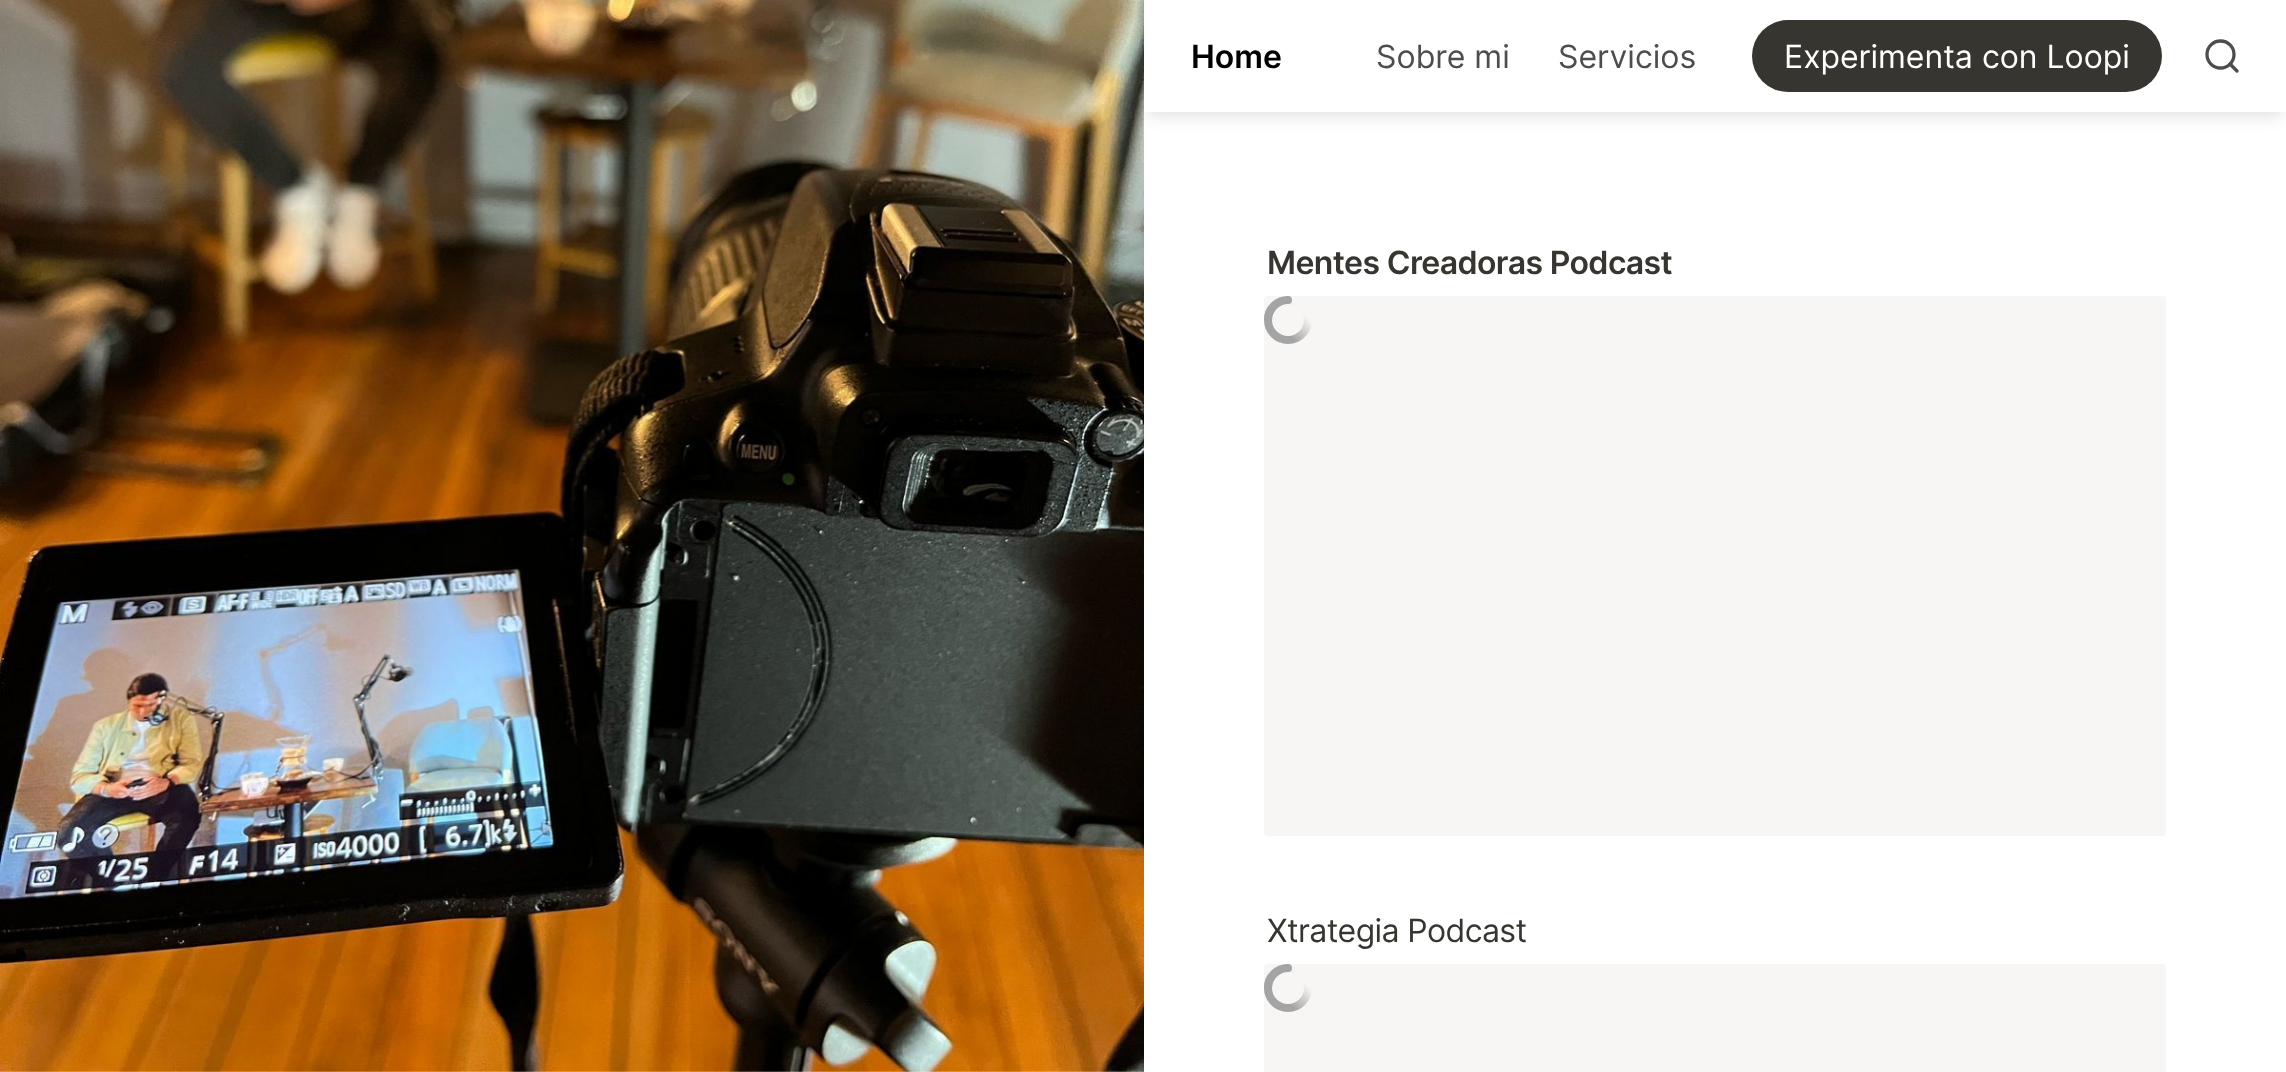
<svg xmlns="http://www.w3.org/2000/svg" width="2286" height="1072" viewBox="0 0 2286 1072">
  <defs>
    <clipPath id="clip1"><path d="M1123 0H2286V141H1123ZM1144 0H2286V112H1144Z" clip-rule="evenodd"/></clipPath>
    <filter id="blur1" x="-50%" y="-200%" width="200%" height="500%"><feGaussianBlur stdDeviation="8"/></filter>
    <linearGradient id="g1" gradientUnits="userSpaceOnUse" x1="1279" y1="325" x2="1298" y2="307"><stop offset="0" stop-color="#a4a4a4"/><stop offset="1" stop-color="#f7f6f5"/></linearGradient>
    <linearGradient id="g2" gradientUnits="userSpaceOnUse" x1="1279" y1="993" x2="1298" y2="975"><stop offset="0" stop-color="#a4a4a4"/><stop offset="1" stop-color="#f7f6f5"/></linearGradient>
  </defs>
  <rect width="100%" height="100%" fill="#ffffff"/>
  <image x="0" y="0" width="1144" height="1072" href="img1.png"/>
  <g clip-path="url(#clip1)">
    <rect x="1148" y="12" width="1134" height="104" fill="#000000" fill-opacity="0.12" filter="url(#blur1)"/>
  </g>
  <text x="1191" y="68" font-family="Inter" font-size="32" font-weight="600" fill="#000000">Home</text>
  <text x="1376" y="68" font-family="Inter" font-size="32" fill="#4d4d4d">Sobre mi</text>
  <text x="1558" y="68" font-family="Inter" font-size="32" fill="#4d4d4d">Servicios</text>
  <rect x="1752" y="20" width="410" height="72" rx="36" fill="#37352f"/>
  <text x="1784" y="68" font-family="Inter" font-size="32" fill="#ffffff">Experimenta con Loopi</text>
  <circle cx="2220.5" cy="54.5" r="13.5" fill="none" stroke="#4d4d4d" stroke-width="3.3"/>
  <path d="M2237 71L2230 64" fill="none" stroke="#4d4d4d" stroke-width="3.3" stroke-linecap="round" stroke-linejoin="round"/>
  <text x="1267" y="274" font-family="Inter" font-size="32" font-weight="600" letter-spacing="-0.6" fill="#37352f">Mentes Creadoras Podcast</text>
  <rect x="1264" y="296" width="902" height="540" rx="4" fill="#f7f6f5"/>
  <circle cx="1288" cy="320" r="20" fill="none" stroke="url(#g1)" stroke-width="8"/>
  <path d="M1288 300C1277 300 1268 309 1268 320" fill="none" stroke="#a4a4a4" stroke-width="8"/>
  <circle cx="1288" cy="300" r="4" fill="#a4a4a4"/>
  <text x="1267" y="942" font-family="Inter" font-size="32" letter-spacing="-0.6" fill="#37352f">Xtrategia Podcast</text>
  <rect x="1264" y="964" width="902" height="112" rx="4" fill="#f7f6f5"/>
  <circle cx="1288" cy="988" r="20" fill="none" stroke="url(#g2)" stroke-width="8"/>
  <path d="M1288 968C1277 968 1268 977 1268 988" fill="none" stroke="#a4a4a4" stroke-width="8"/>
  <circle cx="1288" cy="968" r="4" fill="#a4a4a4"/>
</svg>
